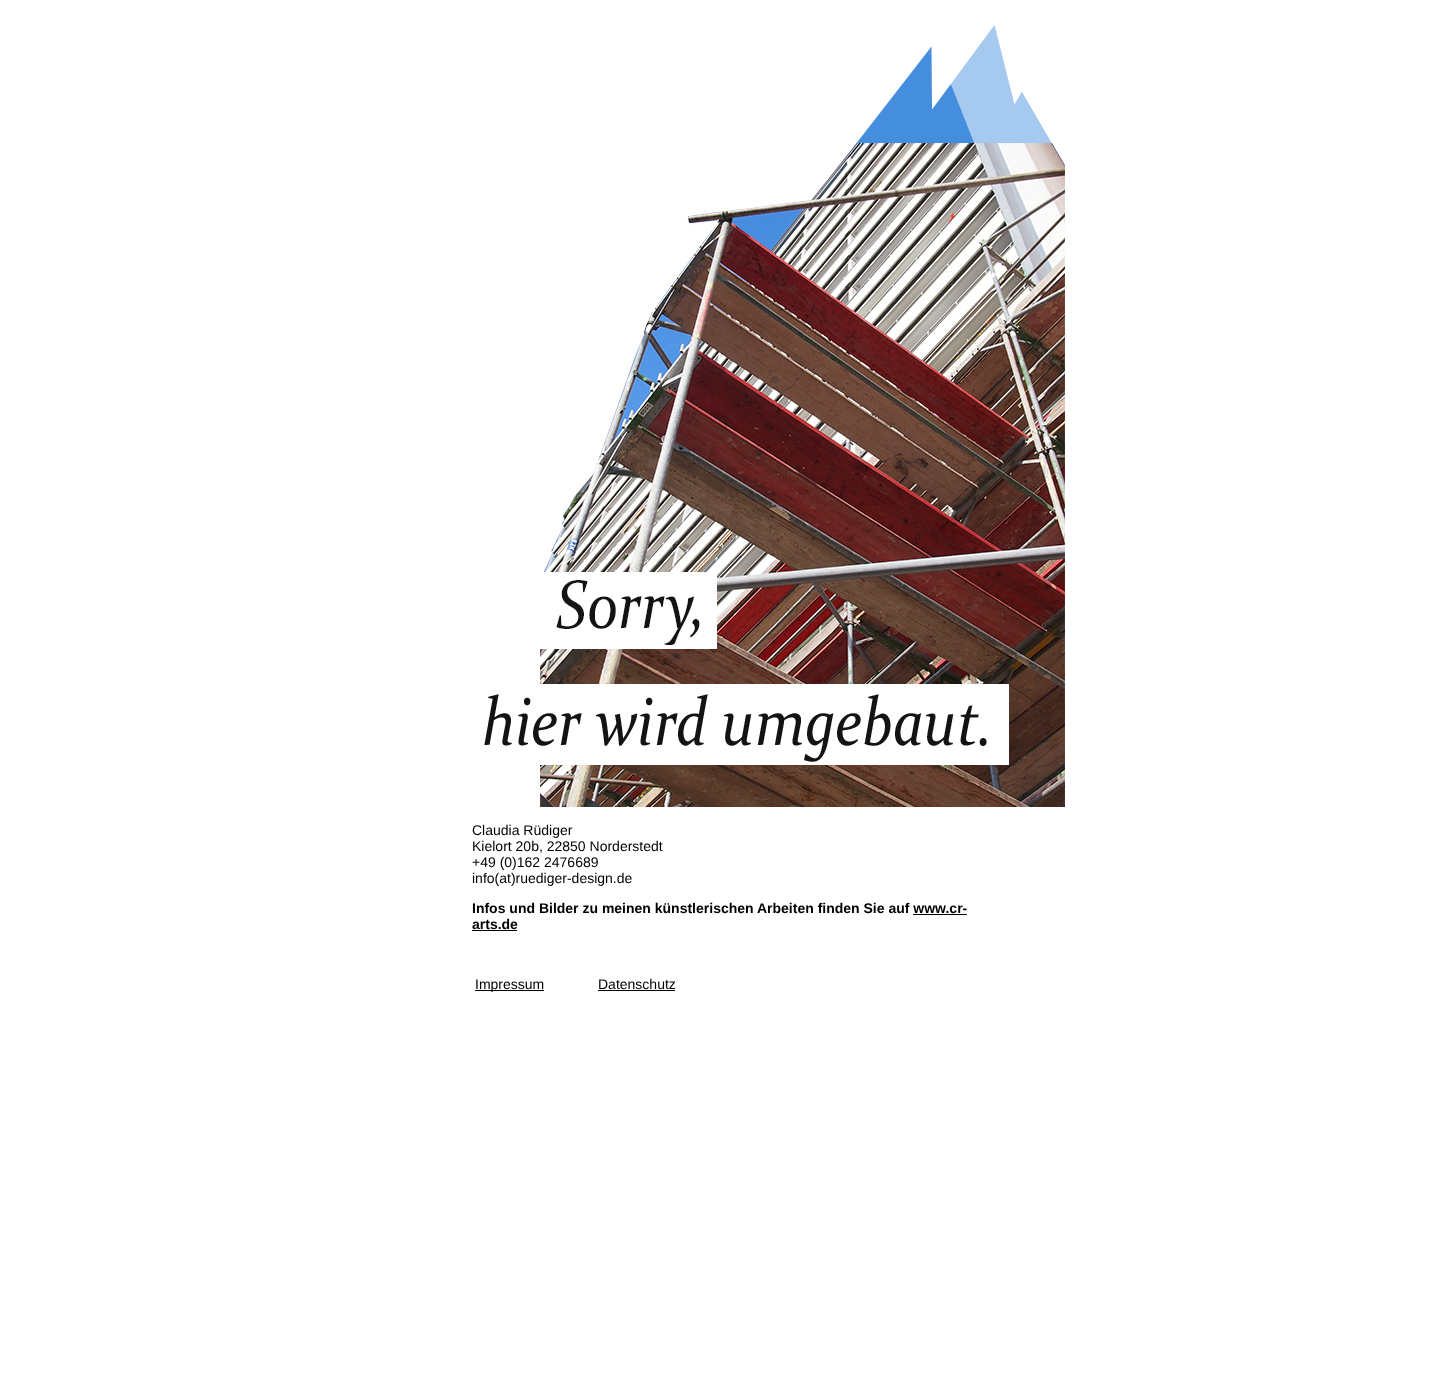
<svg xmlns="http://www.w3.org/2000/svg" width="1443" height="1396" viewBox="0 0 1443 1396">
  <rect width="100%" height="100%" fill="#ffffff"/>
  <image x="483" y="22" width="583" height="785" href="img1.png"/>
  <text x="472" y="835" font-family="Liberation Sans" font-size="14" fill="#000000">Claudia Rüdiger</text>
  <text x="472" y="851" font-family="Liberation Sans" font-size="14" fill="#000000">Kielort 20b, 22850 Norderstedt</text>
  <text x="472" y="867" font-family="Liberation Sans" font-size="14" fill="#000000">+49 (0)162 2476689</text>
  <text x="472" y="883" font-family="Liberation Sans" font-size="14" fill="#000000">info(at)ruediger-design.de</text>
  <text x="472" y="913" font-family="Liberation Sans" font-size="14" font-weight="bold" fill="#000000">Infos und Bilder zu meinen künstlerischen Arbeiten finden Sie auf www.cr-</text>
  <rect x="913" y="914" width="54" height="1" fill="#000000"/>
  <text x="472" y="929" font-family="Liberation Sans" font-size="14" font-weight="bold" fill="#000000">arts.de</text>
  <rect x="472" y="930" width="45" height="1" fill="#000000"/>
  <rect x="475" y="990" width="69" height="1" fill="#000000"/>
  <text x="475" y="989" font-family="Liberation Sans" font-size="14" fill="#000000">Impressum</text>
  <text x="598" y="989" font-family="Liberation Sans" font-size="14" fill="#000000">Datenschutz</text>
  <rect x="598" y="990" width="77" height="1" fill="#000000"/>
</svg>
